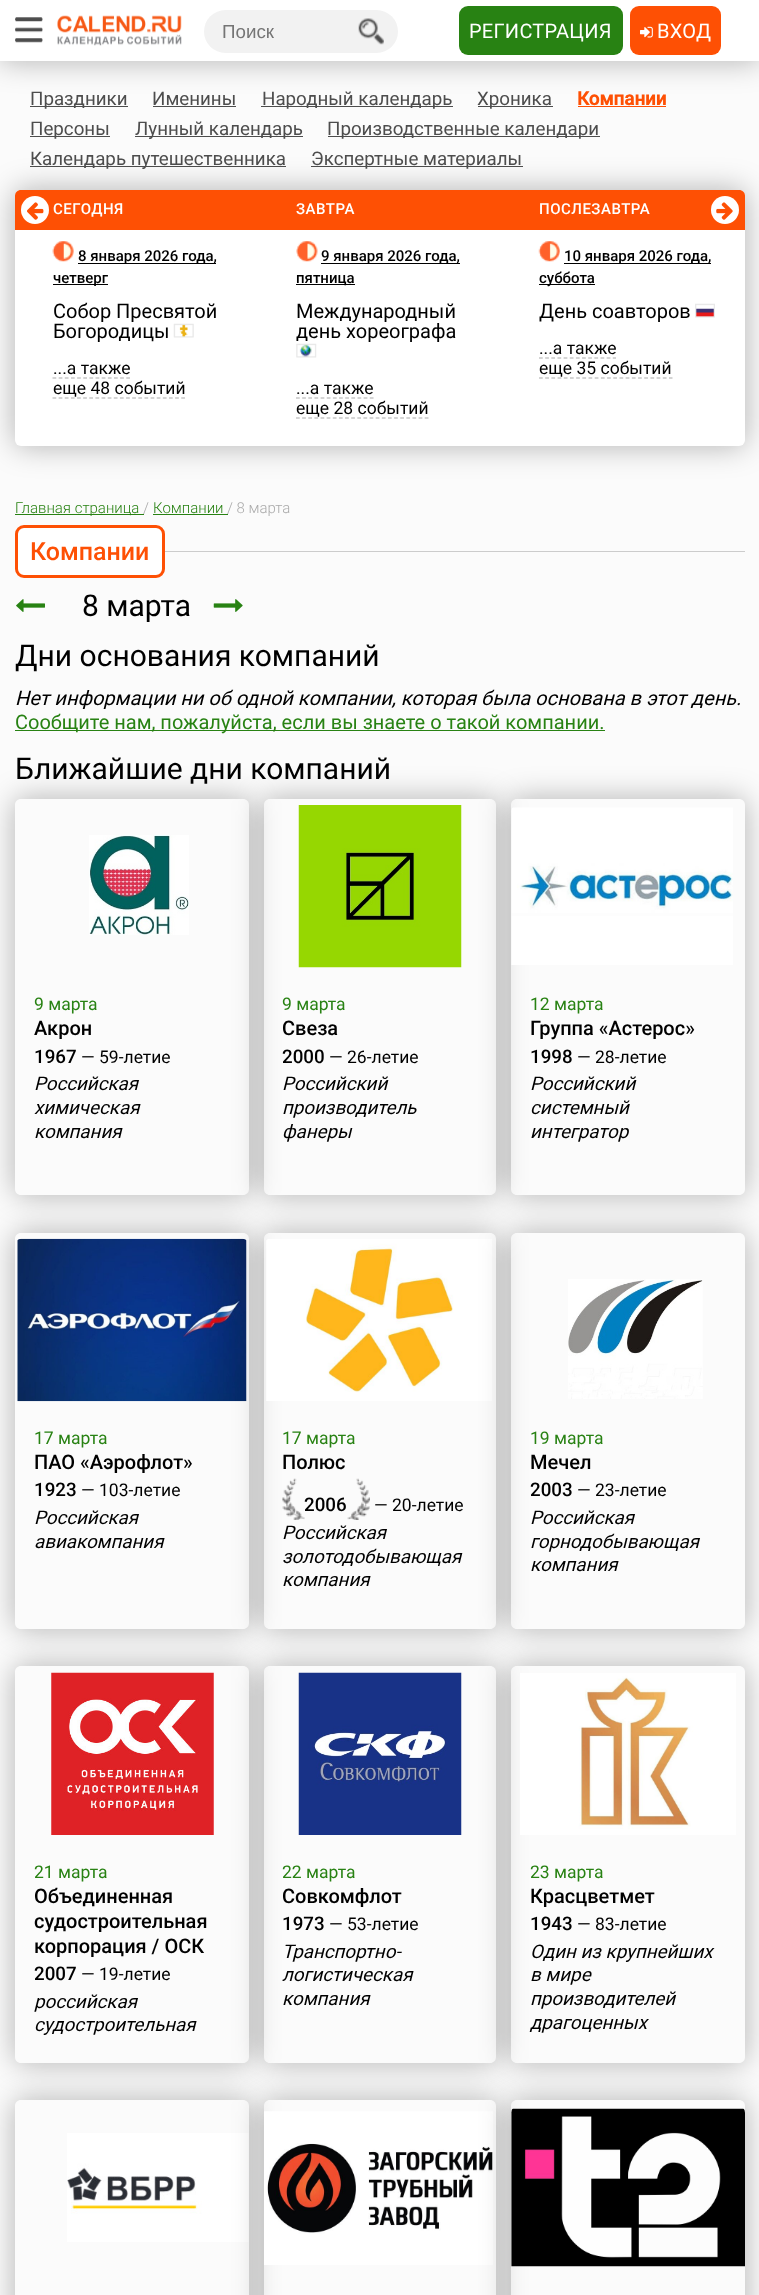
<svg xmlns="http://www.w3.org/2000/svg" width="759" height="2295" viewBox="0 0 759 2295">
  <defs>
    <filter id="blur1" x="-50%" y="-200%" width="200%" height="500%"><feGaussianBlur stdDeviation="15"/></filter>
    <clipPath id="clip1"><path d="M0 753H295V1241H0ZM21 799H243C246.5 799 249 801.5 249 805V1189C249 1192.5 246.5 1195 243 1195H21C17.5 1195 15 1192.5 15 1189V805C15 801.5 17.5 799 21 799Z" clip-rule="evenodd"/></clipPath>
    <clipPath id="clip2"><path d="M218 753H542V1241H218ZM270 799H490C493.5 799 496 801.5 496 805V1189C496 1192.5 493.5 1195 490 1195H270C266.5 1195 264 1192.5 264 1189V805C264 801.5 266.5 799 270 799Z" clip-rule="evenodd"/></clipPath>
    <clipPath id="clip3"><path d="M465 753H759V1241H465ZM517 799H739C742.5 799 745 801.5 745 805V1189C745 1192.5 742.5 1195 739 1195H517C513.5 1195 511 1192.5 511 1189V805C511 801.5 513.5 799 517 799Z" clip-rule="evenodd"/></clipPath>
    <clipPath id="clip4"><path d="M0 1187H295V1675H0ZM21 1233H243C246.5 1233 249 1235.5 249 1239V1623C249 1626.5 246.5 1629 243 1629H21C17.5 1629 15 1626.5 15 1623V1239C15 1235.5 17.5 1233 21 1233Z" clip-rule="evenodd"/></clipPath>
    <clipPath id="clip5"><path d="M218 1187H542V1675H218ZM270 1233H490C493.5 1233 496 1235.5 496 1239V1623C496 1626.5 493.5 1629 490 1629H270C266.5 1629 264 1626.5 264 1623V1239C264 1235.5 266.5 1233 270 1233Z" clip-rule="evenodd"/></clipPath>
    <clipPath id="clip6"><path d="M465 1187H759V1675H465ZM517 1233H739C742.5 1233 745 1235.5 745 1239V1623C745 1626.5 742.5 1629 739 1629H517C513.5 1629 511 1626.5 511 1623V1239C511 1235.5 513.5 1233 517 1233Z" clip-rule="evenodd"/></clipPath>
    <clipPath id="clip7"><path d="M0 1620H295V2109H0ZM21 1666H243C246.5 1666 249 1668.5 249 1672V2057C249 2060.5 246.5 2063 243 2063H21C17.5 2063 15 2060.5 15 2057V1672C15 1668.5 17.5 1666 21 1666Z" clip-rule="evenodd"/></clipPath>
    <clipPath id="clip8"><path d="M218 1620H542V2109H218ZM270 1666H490C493.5 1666 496 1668.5 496 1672V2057C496 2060.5 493.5 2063 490 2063H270C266.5 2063 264 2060.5 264 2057V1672C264 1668.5 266.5 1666 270 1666Z" clip-rule="evenodd"/></clipPath>
    <clipPath id="clip9"><path d="M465 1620H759V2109H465ZM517 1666H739C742.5 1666 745 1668.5 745 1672V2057C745 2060.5 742.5 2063 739 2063H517C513.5 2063 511 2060.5 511 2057V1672C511 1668.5 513.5 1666 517 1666Z" clip-rule="evenodd"/></clipPath>
    <clipPath id="clip10"><path d="M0 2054H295V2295H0ZM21 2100H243C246.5 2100 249 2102.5 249 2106V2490C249 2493.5 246.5 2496 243 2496H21C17.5 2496 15 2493.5 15 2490V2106C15 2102.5 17.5 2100 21 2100Z" clip-rule="evenodd"/></clipPath>
    <clipPath id="clip11"><path d="M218 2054H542V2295H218ZM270 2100H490C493.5 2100 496 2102.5 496 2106V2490C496 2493.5 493.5 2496 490 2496H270C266.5 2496 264 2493.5 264 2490V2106C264 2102.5 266.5 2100 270 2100Z" clip-rule="evenodd"/></clipPath>
    <clipPath id="clip12"><path d="M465 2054H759V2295H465ZM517 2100H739C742.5 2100 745 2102.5 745 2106V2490C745 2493.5 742.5 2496 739 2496H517C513.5 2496 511 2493.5 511 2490V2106C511 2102.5 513.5 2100 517 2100Z" clip-rule="evenodd"/></clipPath>
  </defs>
  <rect width="100%" height="100%" fill="#fbfbfb"/>
  <rect x="30" y="106" width="98" height="1" fill="#4d4d4d"/>
  <rect x="153" y="106" width="83" height="1" fill="#4d4d4d"/>
  <rect x="261" y="106" width="192" height="1" fill="#4d4d4d"/>
  <rect x="478" y="106" width="75" height="1" fill="#4d4d4d"/>
  <rect x="578" y="106" width="88" height="1" fill="#fe5004"/>
  <rect x="0" y="0" width="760" height="61" fill="#000000" fill-opacity="0.3" filter="url(#blur1)"/>
  <rect x="0" y="0" width="759" height="61" fill="#ffffff"/>
  <image x="15" y="17" width="28" height="26" href="img1.png"/>
  <image x="57" y="15" width="125" height="31" href="img2.png"/>
  <rect x="204" y="10" width="194" height="43" rx="21.5" fill="#f2f2f2"/>
  <text x="222" y="38" font-family="Liberation Sans" font-size="18.75" fill="#757575">Поиск</text>
  <image x="358" y="18" width="26" height="27" href="img3.png"/>
  <rect x="459" y="6" width="164" height="49" rx="9" fill="#288213"/>
  <text x="469" y="38" font-family="Roboto" font-size="20" letter-spacing="0.25" fill="#ffffff">РЕГИСТРАЦИЯ</text>
  <rect x="630" y="6" width="91" height="49" rx="9" fill="#fe5004"/>
  <image x="640" y="26" width="13" height="12" href="img4.png"/>
  <text x="657" y="38" font-family="Roboto" font-size="20" letter-spacing="0.25" fill="#ffffff">ВХОД</text>
  <text x="30" y="105" font-family="Roboto" font-size="18.75" fill="#4d4d4d">Праздники</text>
  <text x="152" y="105" font-family="Roboto" font-size="18.75" fill="#4d4d4d">Именины</text>
  <text x="262" y="105" font-family="Roboto" font-size="18.75" fill="#4d4d4d">Народный календарь</text>
  <text x="477" y="105" font-family="Roboto" font-size="18.75" fill="#4d4d4d">Хроника</text>
  <text x="577" y="105" font-family="Roboto" font-size="18.75" font-weight="bold" fill="#fe5004">Компании</text>
  <rect x="30" y="136" width="80" height="1" fill="#4d4d4d"/>
  <text x="30" y="135" font-family="Roboto" font-size="18.75" fill="#4d4d4d">Персоны</text>
  <rect x="135" y="136" width="168" height="1" fill="#4d4d4d"/>
  <text x="135" y="135" font-family="Roboto" font-size="18.75" fill="#4d4d4d">Лунный календарь</text>
  <rect x="328" y="136" width="272" height="1" fill="#4d4d4d"/>
  <text x="327" y="135" font-family="Roboto" font-size="18.75" fill="#4d4d4d">Производственные календари</text>
  <rect x="30" y="166" width="256" height="1" fill="#4d4d4d"/>
  <text x="30" y="165" font-family="Roboto" font-size="18.75" fill="#4d4d4d">Календарь путешественника</text>
  <rect x="311" y="166" width="212" height="1" fill="#4d4d4d"/>
  <text x="311" y="165" font-family="Roboto" font-size="18.75" fill="#4d4d4d">Экспертные материалы</text>
  <rect x="15" y="190" width="730" height="256" rx="6" fill="#000000" fill-opacity="0.3" filter="url(#blur1)"/>
  <rect x="15" y="190" width="730" height="256" rx="6" fill="#ffffff"/>
  <path d="M21 190H739C742.5 190 745 192.5 745 196V230H15V196C15 192.5 17.5 190 21 190Z" fill="#fe5004"/>
  <circle cx="35" cy="210" r="14" fill="#ffffff"/>
  <image x="27" y="202" width="17" height="18" href="img5.png"/>
  <circle cx="725" cy="210" r="14" fill="#ffffff"/>
  <image x="716" y="202" width="17" height="18" href="img6.png"/>
  <text x="53" y="214" font-family="Roboto" font-size="15" font-weight="500" letter-spacing="0.5" fill="#ffffff">СЕГОДНЯ</text>
  <image x="52" y="241" width="22" height="21" href="img7.png"/>
  <rect x="78" y="263" width="138" height="1" fill="#000000"/>
  <text x="78" y="261" font-family="Roboto" font-size="15" font-weight="500" fill="#000000">8 января 2026 года,</text>
  <rect x="53" y="284" width="55" height="1" fill="#000000"/>
  <text x="53" y="283" font-family="Roboto" font-size="15" font-weight="500" fill="#000000">четверг</text>
  <text x="53" y="318" font-family="Roboto" font-size="20" fill="#000000">Собор Пресвятой</text>
  <text x="53" y="338" font-family="Roboto" font-size="20" fill="#000000">Богородицы</text>
  <image x="173" y="323" width="21" height="15" href="img8.png"/>
  <text x="53" y="374" font-family="Roboto" font-size="17.5" fill="#000000">...а также</text>
  <path d="M52.5 378H130" fill="none" stroke="#aaaaaa" stroke-width="1.2" stroke-dasharray="3.75 2.4"/>
  <text x="53" y="394" font-family="Roboto" font-size="17.5" fill="#000000">еще 48 событий</text>
  <path d="M52.5 398H185" fill="none" stroke="#aaaaaa" stroke-width="1.2" stroke-dasharray="3.75 2.38"/>
  <text x="296" y="214" font-family="Roboto" font-size="15" font-weight="500" letter-spacing="0.5" fill="#ffffff">ЗАВТРА</text>
  <image x="296" y="241" width="22" height="21" href="img9.png"/>
  <rect x="321" y="263" width="139" height="1" fill="#000000"/>
  <text x="321" y="261" font-family="Roboto" font-size="15" font-weight="500" fill="#000000">9 января 2026 года,</text>
  <rect x="296" y="284" width="59" height="1" fill="#000000"/>
  <text x="296" y="283" font-family="Roboto" font-size="15" font-weight="500" fill="#000000">пятница</text>
  <text x="296" y="318" font-family="Roboto" font-size="20" fill="#000000">Международный</text>
  <text x="296" y="338" font-family="Roboto" font-size="20" fill="#000000">день хореографа</text>
  <image x="296" y="343" width="21" height="15" href="img10.png"/>
  <text x="296" y="394" font-family="Roboto" font-size="17.5" fill="#000000">...а также</text>
  <path d="M296 398H374" fill="none" stroke="#aaaaaa" stroke-width="1.2" stroke-dasharray="3.75 2.4"/>
  <text x="296" y="414" font-family="Roboto" font-size="17.5" fill="#000000">еще 28 событий</text>
  <path d="M296 418H429" fill="none" stroke="#aaaaaa" stroke-width="1.2" stroke-dasharray="3.75 2.38"/>
  <text x="539" y="214" font-family="Roboto" font-size="15" font-weight="500" letter-spacing="0.5" fill="#ffffff">ПОСЛЕЗАВТРА</text>
  <image x="538" y="241" width="22" height="21" href="img11.png"/>
  <rect x="564" y="263" width="147" height="1" fill="#000000"/>
  <text x="564" y="261" font-family="Roboto" font-size="15" font-weight="500" fill="#000000">10 января 2026 года,</text>
  <rect x="539" y="284" width="56" height="1" fill="#000000"/>
  <text x="539" y="283" font-family="Roboto" font-size="15" font-weight="500" fill="#000000">суббота</text>
  <text x="539" y="318" font-family="Roboto" font-size="20" fill="#000000">День соавторов</text>
  <image x="695" y="303" width="20" height="15" href="img12.png"/>
  <text x="539" y="354" font-family="Roboto" font-size="17.5" fill="#000000">...а также</text>
  <path d="M539 358H616" fill="none" stroke="#aaaaaa" stroke-width="1.2" stroke-dasharray="3.75 2.4"/>
  <text x="539" y="374" font-family="Roboto" font-size="17.5" fill="#000000">еще 35 событий</text>
  <path d="M539 378H672.5" fill="none" stroke="#aaaaaa" stroke-width="1.2" stroke-dasharray="3.75 2.44"/>
  <rect x="15" y="514" width="129" height="1" fill="#288213"/>
  <text x="15" y="513" font-family="Roboto" font-size="15" font-weight="300" fill="#288213">Главная страница</text>
  <text x="143" y="513" font-family="Roboto" font-size="15" font-weight="300" fill="#aaaaaa">/</text>
  <text x="153" y="513" font-family="Roboto" font-size="15" font-weight="300" fill="#288213">Компании</text>
  <rect x="153" y="514" width="75" height="1" fill="#288213"/>
  <text x="227" y="513" font-family="Roboto" font-size="15" font-weight="300" fill="#aaaaaa">/ 8 марта</text>
  <rect x="16.5" y="526.5" width="147" height="50" rx="7.5" fill="#ffffff" stroke="#fe5004" stroke-width="3"/>
  <text x="30" y="560" font-family="Roboto" font-size="25" font-weight="500" fill="#fe5004">Компании</text>
  <rect x="165" y="551" width="580" height="1" fill="#cccccc"/>
  <image x="16" y="599" width="29" height="13" href="img13.png"/>
  <text x="82" y="616" font-family="Roboto" font-size="30" fill="#000000">8 марта</text>
  <image x="213" y="599" width="30" height="13" href="img14.png"/>
  <text x="15" y="666" font-family="Roboto" font-size="30" fill="#000000">Дни основания компаний</text>
  <text x="15" y="705" font-family="Roboto" font-size="20" font-style="italic" fill="#000000">Нет информации ни об одной компании, которая была основана в этот день.</text>
  <rect x="15" y="730" width="590" height="1" fill="#288213"/>
  <text x="15" y="729" font-family="Roboto" font-size="20" fill="#288213">Сообщите нам, пожалуйста, если вы знаете о такой компании.</text>
  <text x="15" y="779" font-family="Roboto" font-size="30" fill="#000000">Ближайшие дни компаний</text>
  <g clip-path="url(#clip1)">
    <rect x="15" y="799" width="234" height="396" rx="6" fill="#000000" fill-opacity="0.3" filter="url(#blur1)"/>
  </g>
  <image x="89" y="835" width="100" height="100" href="img15.png"/>
  <text x="34" y="1010" font-family="Roboto" font-size="17.5" fill="#288213">9 марта</text>
  <text x="34" y="1035" font-family="Roboto" font-size="20" font-weight="500" fill="#000000">Акрон</text>
  <text x="34" y="1063" font-family="Roboto" font-size="18.75" font-weight="500" fill="#000000">1967</text>
  <text x="81" y="1063" font-family="Roboto" font-size="17.5" fill="#000000">— 59-летие</text>
  <text x="34" y="1090" font-family="Roboto" font-size="18.75" font-style="italic" fill="#000000">Российская</text>
  <text x="34" y="1114" font-family="Roboto" font-size="18.75" font-style="italic" fill="#000000">химическая</text>
  <text x="34" y="1138" font-family="Roboto" font-size="18.75" font-style="italic" fill="#000000">компания</text>
  <g clip-path="url(#clip2)">
    <rect x="264" y="799" width="232" height="396" rx="6" fill="#000000" fill-opacity="0.3" filter="url(#blur1)"/>
  </g>
  <image x="298" y="805" width="164" height="163" href="img16.png"/>
  <text x="282" y="1010" font-family="Roboto" font-size="17.5" fill="#288213">9 марта</text>
  <text x="282" y="1035" font-family="Roboto" font-size="20" font-weight="500" fill="#000000">Свеза</text>
  <text x="282" y="1063" font-family="Roboto" font-size="18.75" font-weight="500" fill="#000000">2000</text>
  <text x="329" y="1063" font-family="Roboto" font-size="17.5" fill="#000000">— 26-летие</text>
  <text x="282" y="1090" font-family="Roboto" font-size="18.75" font-style="italic" fill="#000000">Российский</text>
  <text x="282" y="1114" font-family="Roboto" font-size="18.75" font-style="italic" fill="#000000">производитель</text>
  <text x="282" y="1138" font-family="Roboto" font-size="18.75" font-style="italic" fill="#000000">фанеры</text>
  <g clip-path="url(#clip3)">
    <rect x="511" y="799" width="234" height="396" rx="6" fill="#000000" fill-opacity="0.3" filter="url(#blur1)"/>
  </g>
  <image x="511" y="807" width="222" height="158" href="img17.png"/>
  <text x="530" y="1010" font-family="Roboto" font-size="17.5" fill="#288213">12 марта</text>
  <text x="530" y="1035" font-family="Roboto" font-size="20" font-weight="500" fill="#000000">Группа «Астерос»</text>
  <text x="530" y="1063" font-family="Roboto" font-size="18.75" font-weight="500" fill="#000000">1998</text>
  <text x="577" y="1063" font-family="Roboto" font-size="17.5" fill="#000000">— 28-летие</text>
  <text x="530" y="1090" font-family="Roboto" font-size="18.75" font-style="italic" fill="#000000">Российский</text>
  <text x="530" y="1114" font-family="Roboto" font-size="18.75" font-style="italic" fill="#000000">системный</text>
  <text x="530" y="1138" font-family="Roboto" font-size="18.75" font-style="italic" fill="#000000">интегратор</text>
  <g clip-path="url(#clip4)">
    <rect x="15" y="1233" width="234" height="396" rx="6" fill="#000000" fill-opacity="0.3" filter="url(#blur1)"/>
  </g>
  <image x="17" y="1238" width="230" height="164" href="img18.png"/>
  <text x="34" y="1444" font-family="Roboto" font-size="17.5" fill="#288213">17 марта</text>
  <text x="34" y="1469" font-family="Roboto" font-size="20" font-weight="500" fill="#000000">ПАО «Аэрофлот»</text>
  <text x="34" y="1496" font-family="Roboto" font-size="18.75" font-weight="500" fill="#000000">1923</text>
  <text x="81" y="1496" font-family="Roboto" font-size="17.5" fill="#000000">— 103-летие</text>
  <text x="34" y="1524" font-family="Roboto" font-size="18.75" font-style="italic" fill="#000000">Российская</text>
  <text x="34" y="1548" font-family="Roboto" font-size="18.75" font-style="italic" fill="#000000">авиакомпания</text>
  <g clip-path="url(#clip5)">
    <rect x="264" y="1233" width="232" height="396" rx="6" fill="#000000" fill-opacity="0.3" filter="url(#blur1)"/>
  </g>
  <image x="266" y="1239" width="226" height="162" href="img19.png"/>
  <text x="282" y="1444" font-family="Roboto" font-size="17.5" fill="#288213">17 марта</text>
  <text x="282" y="1469" font-family="Roboto" font-size="20" font-weight="500" fill="#000000">Полюс</text>
  <image x="282" y="1478" width="23" height="42" href="img20.png"/>
  <text x="304" y="1511" font-family="Roboto" font-size="18.75" font-weight="500" fill="#000000">2006</text>
  <image x="347" y="1478" width="23" height="42" href="img21.png"/>
  <text x="374" y="1511" font-family="Roboto" font-size="17.5" fill="#000000">— 20-летие</text>
  <text x="282" y="1539" font-family="Roboto" font-size="18.75" font-style="italic" fill="#000000">Российская</text>
  <text x="282" y="1563" font-family="Roboto" font-size="18.75" font-style="italic" fill="#000000">золотодобывающая</text>
  <text x="282" y="1586" font-family="Roboto" font-size="18.75" font-style="italic" fill="#000000">компания</text>
  <g clip-path="url(#clip6)">
    <rect x="511" y="1233" width="234" height="396" rx="6" fill="#000000" fill-opacity="0.3" filter="url(#blur1)"/>
  </g>
  <image x="568" y="1279" width="135" height="120" href="img22.png"/>
  <text x="530" y="1444" font-family="Roboto" font-size="17.5" fill="#288213">19 марта</text>
  <text x="530" y="1469" font-family="Roboto" font-size="20" font-weight="500" fill="#000000">Мечел</text>
  <text x="530" y="1496" font-family="Roboto" font-size="18.75" font-weight="500" fill="#000000">2003</text>
  <text x="577" y="1496" font-family="Roboto" font-size="17.5" fill="#000000">— 23-летие</text>
  <text x="530" y="1524" font-family="Roboto" font-size="18.75" font-style="italic" fill="#000000">Российская</text>
  <text x="530" y="1548" font-family="Roboto" font-size="18.75" font-style="italic" fill="#000000">горнодобывающая</text>
  <text x="530" y="1571" font-family="Roboto" font-size="18.75" font-style="italic" fill="#000000">компания</text>
  <g clip-path="url(#clip7)">
    <rect x="15" y="1666" width="234" height="397" rx="6" fill="#000000" fill-opacity="0.3" filter="url(#blur1)"/>
  </g>
  <image x="51" y="1672" width="163" height="163" href="img23.png"/>
  <text x="34" y="1878" font-family="Roboto" font-size="17.5" fill="#288213">21 марта</text>
  <text x="34" y="1903" font-family="Roboto" font-size="20" font-weight="500" fill="#000000">Объединенная</text>
  <text x="34" y="1928" font-family="Roboto" font-size="20" font-weight="500" fill="#000000">судостроительная</text>
  <text x="34" y="1953" font-family="Roboto" font-size="20" font-weight="500" fill="#000000">корпорация / ОСК</text>
  <text x="34" y="1980" font-family="Roboto" font-size="18.75" font-weight="500" fill="#000000">2007</text>
  <text x="81" y="1980" font-family="Roboto" font-size="17.5" fill="#000000">— 19-летие</text>
  <text x="34" y="2008" font-family="Roboto" font-size="18.75" font-style="italic" fill="#000000">российская</text>
  <text x="34" y="2031" font-family="Roboto" font-size="18.75" font-style="italic" fill="#000000">судостроительная</text>
  <g clip-path="url(#clip8)">
    <rect x="264" y="1666" width="232" height="397" rx="6" fill="#000000" fill-opacity="0.3" filter="url(#blur1)"/>
  </g>
  <image x="298" y="1672" width="164" height="163" href="img24.png"/>
  <text x="282" y="1878" font-family="Roboto" font-size="17.5" fill="#288213">22 марта</text>
  <text x="282" y="1903" font-family="Roboto" font-size="20" font-weight="500" fill="#000000">Совкомфлот</text>
  <text x="282" y="1930" font-family="Roboto" font-size="18.75" font-weight="500" fill="#000000">1973</text>
  <text x="329" y="1930" font-family="Roboto" font-size="17.5" fill="#000000">— 53-летие</text>
  <text x="282" y="1958" font-family="Roboto" font-size="18.75" font-style="italic" fill="#000000">Транспортно-</text>
  <text x="282" y="1981" font-family="Roboto" font-size="18.75" font-style="italic" fill="#000000">логистическая</text>
  <text x="282" y="2005" font-family="Roboto" font-size="18.75" font-style="italic" fill="#000000">компания</text>
  <g clip-path="url(#clip9)">
    <rect x="511" y="1666" width="234" height="397" rx="6" fill="#000000" fill-opacity="0.3" filter="url(#blur1)"/>
  </g>
  <image x="520" y="1673" width="216" height="162" href="img25.png"/>
  <text x="530" y="1878" font-family="Roboto" font-size="17.5" fill="#288213">23 марта</text>
  <text x="530" y="1903" font-family="Roboto" font-size="20" font-weight="500" fill="#000000">Красцветмет</text>
  <text x="530" y="1930" font-family="Roboto" font-size="18.75" font-weight="500" fill="#000000">1943</text>
  <text x="577" y="1930" font-family="Roboto" font-size="17.5" fill="#000000">— 83-летие</text>
  <text x="530" y="1958" font-family="Roboto" font-size="18.75" font-style="italic" fill="#000000">Один из крупнейших</text>
  <text x="530" y="1981" font-family="Roboto" font-size="18.75" font-style="italic" fill="#000000">в мире</text>
  <text x="530" y="2005" font-family="Roboto" font-size="18.75" font-style="italic" fill="#000000">производителей</text>
  <text x="530" y="2029" font-family="Roboto" font-size="18.75" font-style="italic" fill="#000000">драгоценных</text>
  <g clip-path="url(#clip10)">
    <rect x="15" y="2100" width="234" height="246" rx="6" fill="#000000" fill-opacity="0.3" filter="url(#blur1)"/>
  </g>
  <image x="67" y="2133" width="182" height="109" href="img26.png"/>
  <g clip-path="url(#clip11)">
    <rect x="264" y="2100" width="232" height="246" rx="6" fill="#000000" fill-opacity="0.3" filter="url(#blur1)"/>
  </g>
  <image x="264" y="2111" width="229" height="154" href="img27.png"/>
  <g clip-path="url(#clip12)">
    <rect x="511" y="2100" width="234" height="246" rx="6" fill="#000000" fill-opacity="0.3" filter="url(#blur1)"/>
  </g>
  <image x="511" y="2108" width="234" height="159" href="img28.png"/>
</svg>
